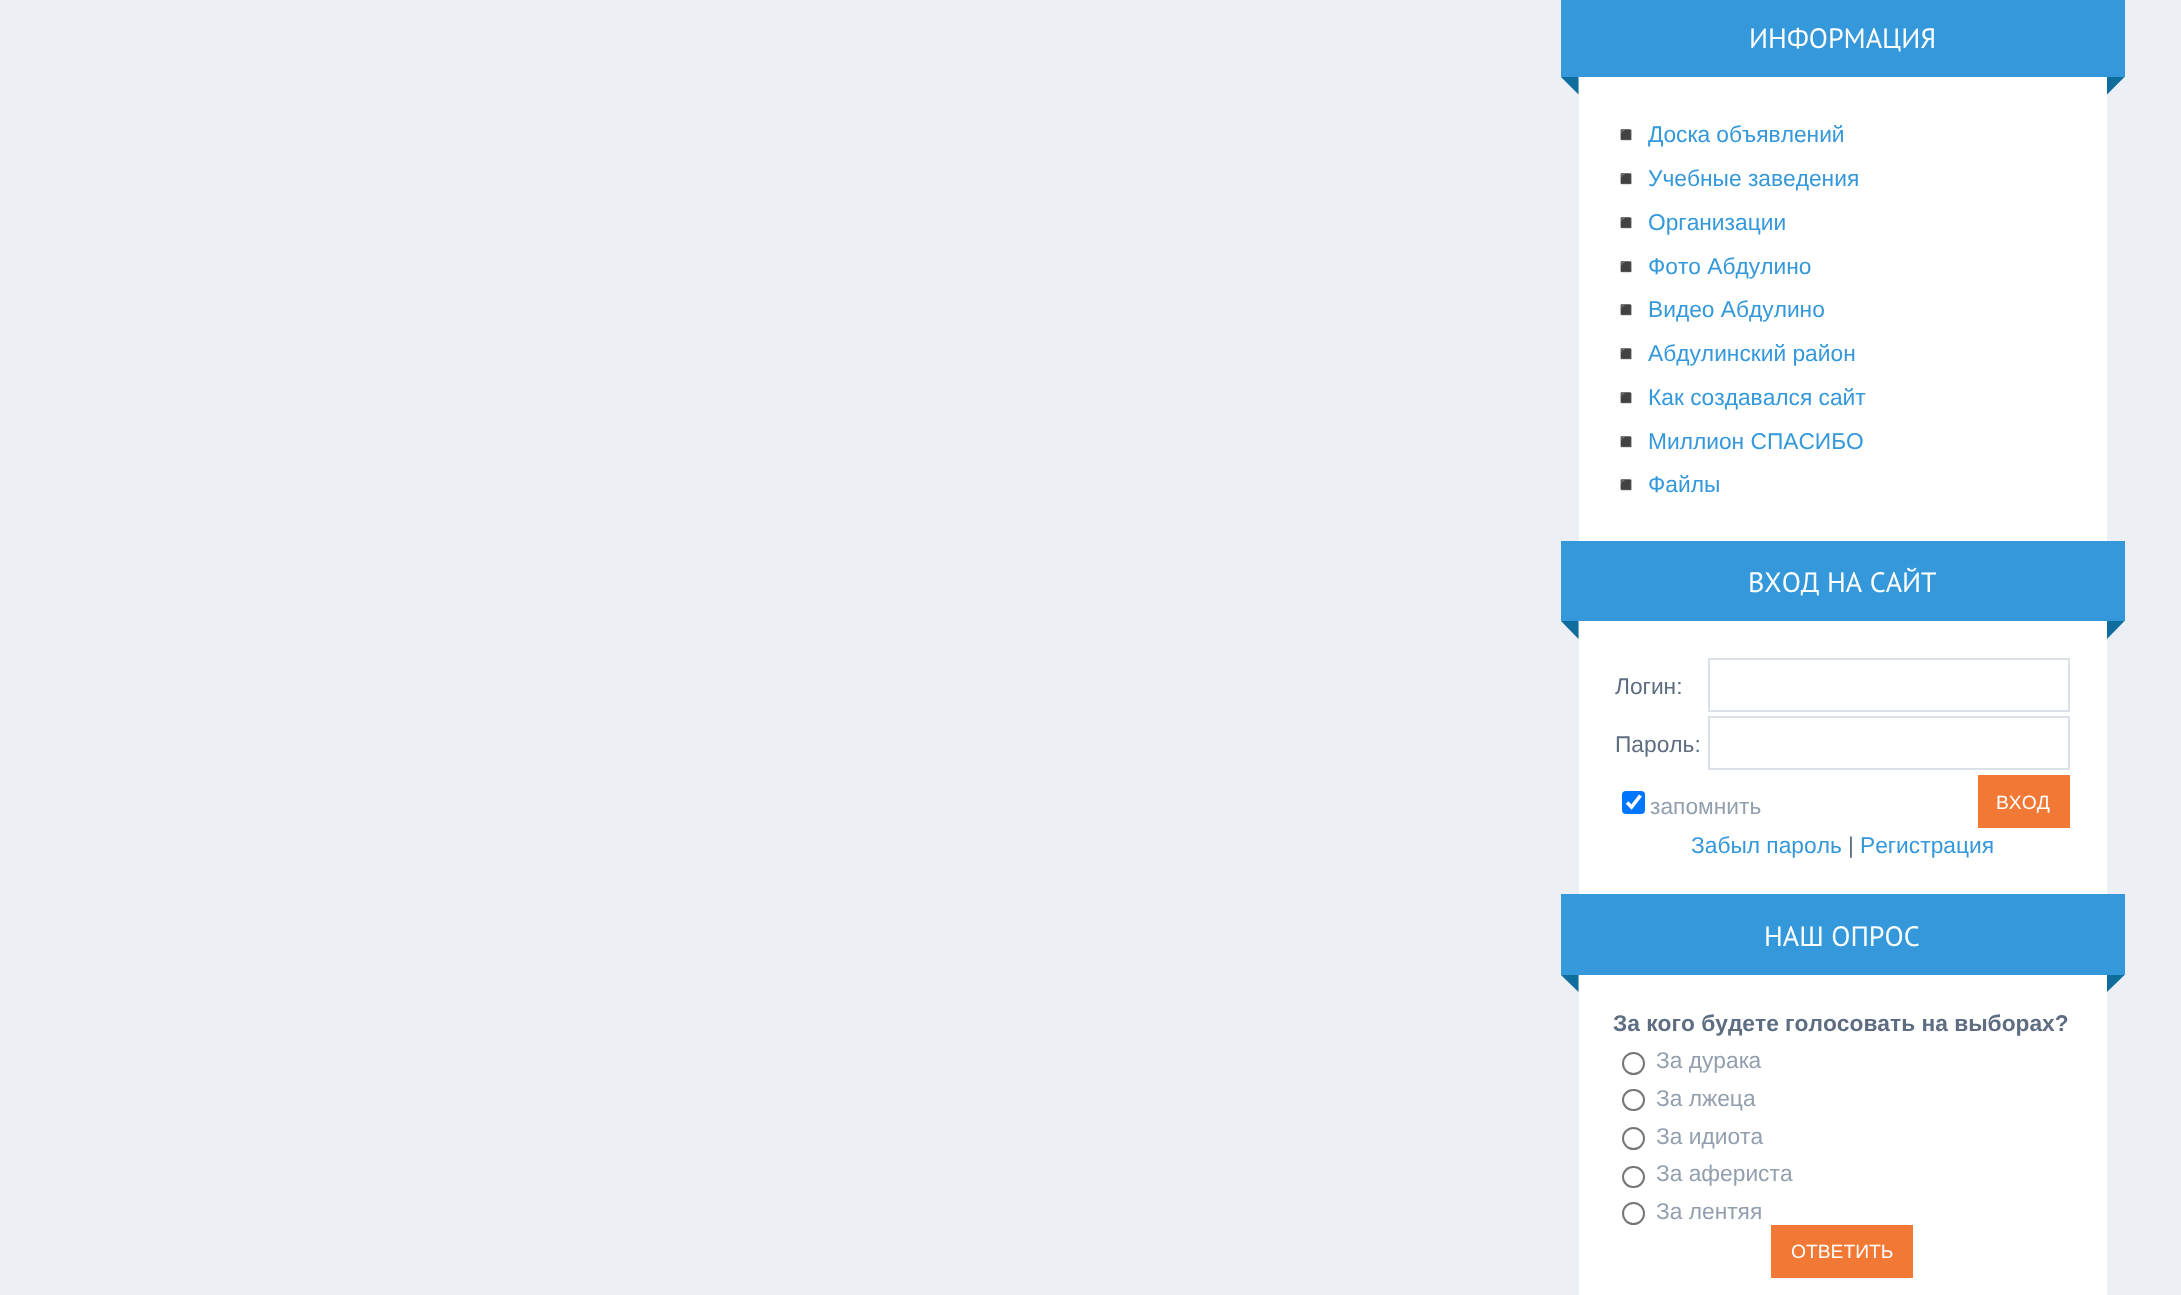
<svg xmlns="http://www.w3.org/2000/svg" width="2181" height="1295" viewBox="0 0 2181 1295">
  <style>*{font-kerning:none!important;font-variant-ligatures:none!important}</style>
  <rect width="100%" height="100%" fill="#eceff3"/>
  <rect x="1579" y="77" width="528" height="1218" fill="#ffffff"/>
  <rect x="1561" y="0" width="564" height="77" fill="#3498db"/>
  <text x="1749" y="48" font-family="PT Sans" font-size="28" fill="#ffffff">ИНФОРМАЦИЯ</text>
  <path d="M1561 77H1578.5V94.5Z" fill="#0f6d9e"/>
  <path d="M2107 77H2124.5L2107 94.5Z" fill="#0f6d9e"/>
  <text x="1613" y="142" font-family="Noto Color Emoji" font-size="21" fill="#dadddf">◾</text>
  <text x="1648" y="142" font-family="Liberation Sans" font-size="22.75" fill="#3498db">Доска объявлений</text>
  <text x="1613" y="186" font-family="Noto Color Emoji" font-size="21" fill="#dadddf">◾</text>
  <text x="1648" y="186" font-family="Liberation Sans" font-size="22.75" fill="#3498db">Учебные заведения</text>
  <text x="1613" y="230" font-family="Noto Color Emoji" font-size="21" fill="#dadddf">◾</text>
  <text x="1648" y="230" font-family="Liberation Sans" font-size="22.75" fill="#3498db">Организации</text>
  <text x="1613" y="274" font-family="Noto Color Emoji" font-size="21" fill="#dadddf">◾</text>
  <text x="1648" y="274" font-family="Liberation Sans" font-size="22.75" fill="#3498db">Фото Абдулино</text>
  <text x="1613" y="317" font-family="Noto Color Emoji" font-size="21" fill="#dadddf">◾</text>
  <text x="1648" y="317" font-family="Liberation Sans" font-size="22.75" fill="#3498db">Видео Абдулино</text>
  <text x="1613" y="361" font-family="Noto Color Emoji" font-size="21" fill="#dadddf">◾</text>
  <text x="1648" y="361" font-family="Liberation Sans" font-size="22.75" fill="#3498db">Абдулинский район</text>
  <text x="1613" y="405" font-family="Noto Color Emoji" font-size="21" fill="#dadddf">◾</text>
  <text x="1648" y="405" font-family="Liberation Sans" font-size="22.75" fill="#3498db">Как создавался сайт</text>
  <text x="1613" y="449" font-family="Noto Color Emoji" font-size="21" fill="#dadddf">◾</text>
  <text x="1648" y="449" font-family="Liberation Sans" font-size="22.75" fill="#3498db">Миллион СПАСИБО</text>
  <text x="1613" y="492" font-family="Noto Color Emoji" font-size="21" fill="#dadddf">◾</text>
  <text x="1648" y="492" font-family="Liberation Sans" font-size="22.75" fill="#3498db">Файлы</text>
  <rect x="1561" y="541" width="564" height="80" fill="#3498db"/>
  <text x="1748" y="592" font-family="PT Sans" font-size="28" fill="#ffffff">ВХОД НА САЙТ</text>
  <path d="M1561 621H1578.5V639Z" fill="#0f6d9e"/>
  <path d="M2107 621H2124.5L2107 639Z" fill="#0f6d9e"/>
  <text x="1615" y="694" font-family="Liberation Sans" font-size="22.75" fill="#5e6d81">Логин:</text>
  <rect x="1709" y="659" width="360" height="52" fill="none" stroke="#dbe1e8" stroke-width="2"/>
  <text x="1615" y="752" font-family="Liberation Sans" font-size="22.75" fill="#5e6d81">Пароль:</text>
  <rect x="1709" y="717" width="360" height="52" fill="none" stroke="#dbe1e8" stroke-width="2"/>
  <rect x="1622" y="791" width="23" height="23" rx="4" fill="#0075ff"/>
  <path d="M1627 802.5L1631.5 807L1640.5 795.5" fill="none" stroke="#ffffff" stroke-width="3.6"/>
  <text x="1650" y="814" font-family="Liberation Sans" font-size="22.75" fill="#939fae">запомнить</text>
  <rect x="1978" y="775" width="92" height="53" fill="#f27935"/>
  <text x="1996" y="809" font-family="Liberation Sans" font-size="19.25" fill="#ffffff">ВХОД</text>
  <text x="1691" y="853" font-family="Liberation Sans" font-size="22.75" fill="#3498db">Забыл пароль</text>
  <text x="1848" y="853" font-family="Liberation Sans" font-size="22.75" fill="#5e6d81">|</text>
  <text x="1860" y="853" font-family="Liberation Sans" font-size="22.75" fill="#3498db">Регистрация</text>
  <rect x="1561" y="894" width="564" height="81" fill="#3498db"/>
  <text x="1764" y="946" font-family="PT Sans" font-size="28" fill="#ffffff">НАШ ОПРОС</text>
  <path d="M1561 975H1578.5V992Z" fill="#0f6d9e"/>
  <path d="M2107 975H2124.5L2107 992Z" fill="#0f6d9e"/>
  <text x="1613" y="1031" font-family="Liberation Sans" font-size="22.75" font-weight="bold" fill="#5e6d81">За кого будете голосовать на выборах?</text>
  <circle cx="1633.5" cy="1063.5" r="10.5" fill="none" stroke="#767676" stroke-width="2"/>
  <text x="1656" y="1068" font-family="Liberation Sans" font-size="22.75" fill="#939fae">За дурака</text>
  <rect x="1623" y="1090" width="21" height="20" rx="10" fill="none" stroke="#767676" stroke-width="2"/>
  <text x="1656" y="1106" font-family="Liberation Sans" font-size="22.75" fill="#939fae">За лжеца</text>
  <circle cx="1633.5" cy="1138.5" r="10.5" fill="none" stroke="#767676" stroke-width="2"/>
  <text x="1656" y="1144" font-family="Liberation Sans" font-size="22.75" fill="#939fae">За идиота</text>
  <rect x="1623" y="1167" width="21" height="20" rx="10" fill="none" stroke="#767676" stroke-width="2"/>
  <text x="1656" y="1181" font-family="Liberation Sans" font-size="22.75" fill="#939fae">За афериста</text>
  <circle cx="1633.5" cy="1213.5" r="10.5" fill="none" stroke="#767676" stroke-width="2"/>
  <text x="1656" y="1219" font-family="Liberation Sans" font-size="22.75" fill="#939fae">За лентяя</text>
  <rect x="1771" y="1225" width="142" height="53" fill="#f27935"/>
  <text x="1791" y="1258" font-family="Liberation Sans" font-size="19.25" fill="#ffffff">ОТВЕТИТЬ</text>
</svg>
